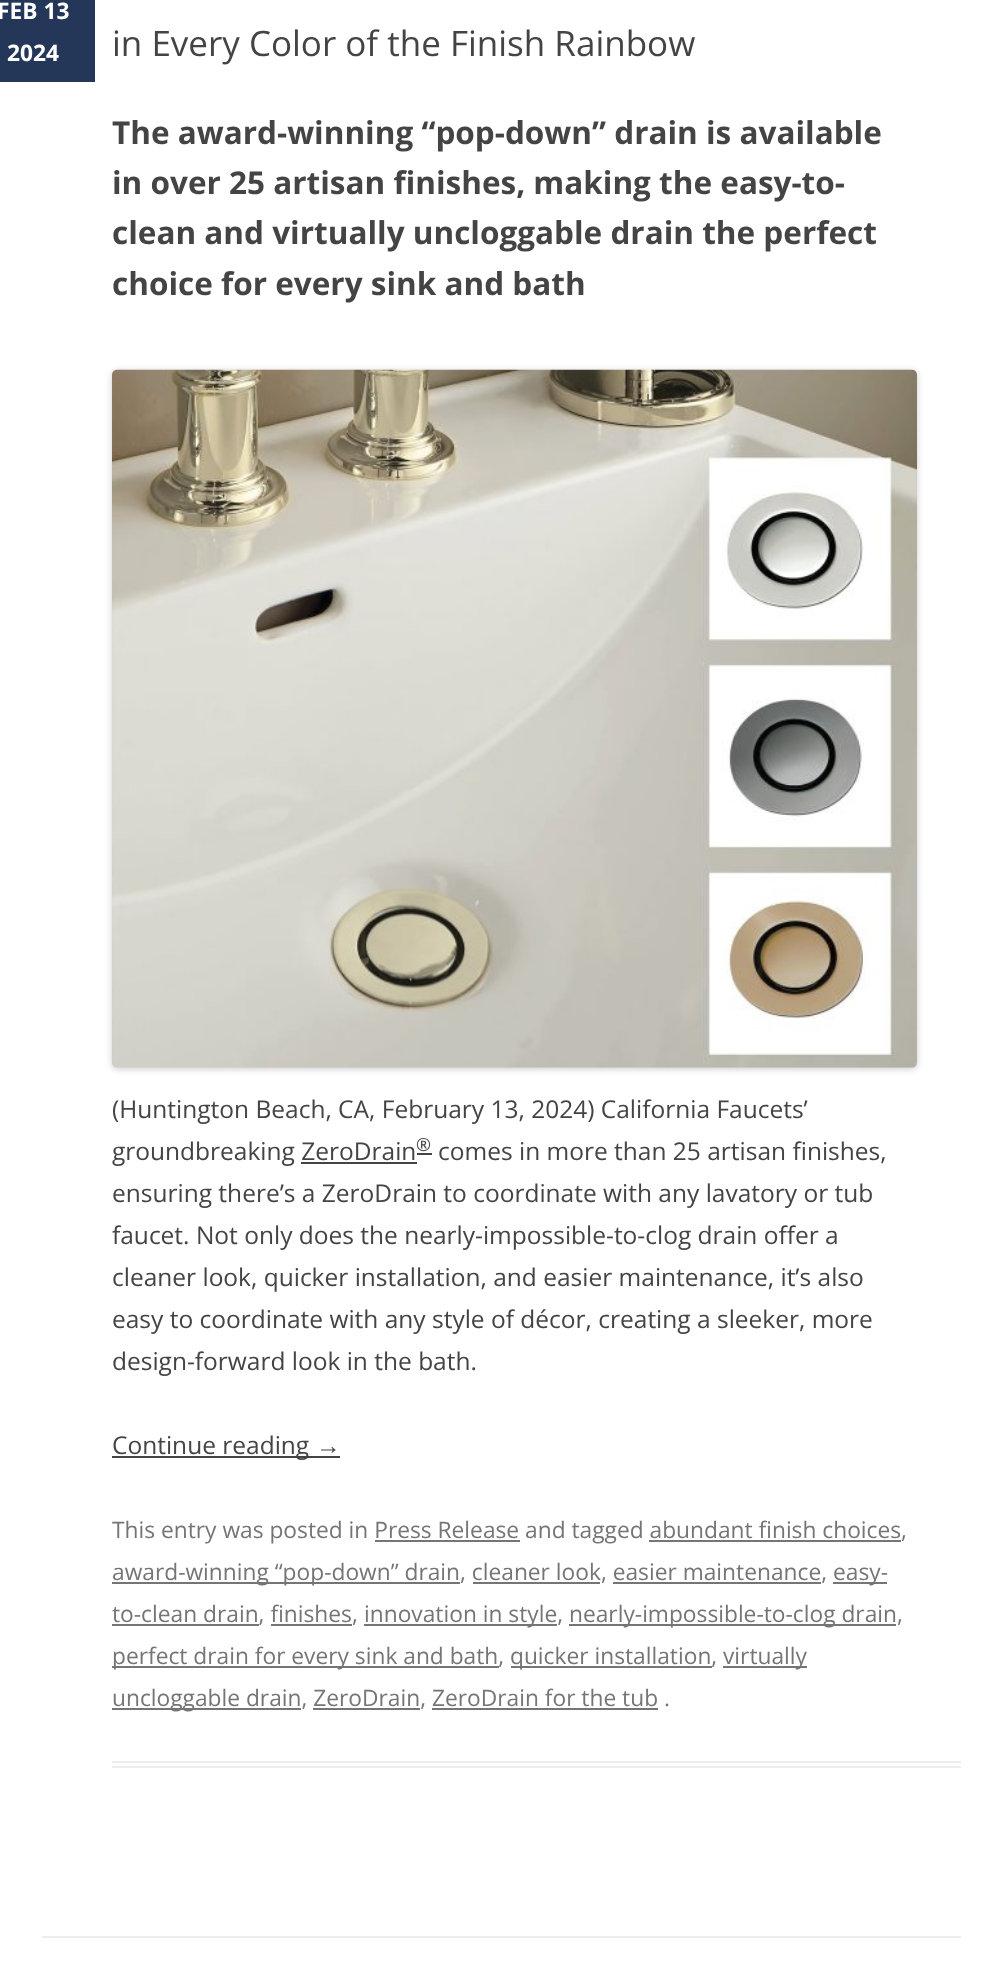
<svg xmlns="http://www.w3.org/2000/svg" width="1002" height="1970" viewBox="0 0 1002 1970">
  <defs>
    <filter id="blur1" x="-50%" y="-200%" width="200%" height="500%"><feGaussianBlur stdDeviation="3.5"/></filter>
  </defs>
  <rect width="100%" height="100%" fill="#ffffff"/>
  <rect x="112" y="1761" width="849" height="2" fill="#ededed"/>
  <rect x="112" y="1766" width="849" height="2" fill="#ededed"/>
  <rect x="0" y="0" width="95" height="82" fill="#243759"/>
  <text x="-3" y="19" font-family="Open Sans" font-size="22.75" font-weight="bold" fill="#ffffff">FEB 13</text>
  <text x="7" y="61" font-family="Open Sans" font-size="22.75" font-weight="bold" fill="#ffffff">2024</text>
  <text x="112" y="1538" font-family="Open Sans" font-size="22.75" fill="#757575">This entry was posted in Press Release and tagged abundant finish choices,</text>
  <rect x="375" y="1540" width="145" height="2" fill="#757575"/>
  <rect x="649" y="1540" width="252" height="2" fill="#757575"/>
  <rect x="112" y="1582" width="348" height="2" fill="#757575"/>
  <text x="112" y="1580" font-family="Open Sans" font-size="22.75" fill="#757575">award-winning “pop-down” drain, cleaner look, easier maintenance,</text>
  <rect x="833" y="1582" width="54" height="2" fill="#757575"/>
  <text x="833" y="1580" font-family="Open Sans" font-size="22.75" fill="#757575">easy-</text>
  <rect x="473" y="1582" width="127" height="2" fill="#757575"/>
  <rect x="613" y="1582" width="208" height="2" fill="#757575"/>
  <rect x="112" y="1624" width="147" height="2" fill="#757575"/>
  <text x="112" y="1622" font-family="Open Sans" font-size="22.75" fill="#757575">to-clean drain, finishes,</text>
  <rect x="364" y="1624" width="193" height="2" fill="#757575"/>
  <text x="364" y="1622" font-family="Open Sans" font-size="22.75" fill="#757575">innovation in style,</text>
  <rect x="569" y="1624" width="327" height="2" fill="#757575"/>
  <text x="569" y="1622" font-family="Open Sans" font-size="22.75" fill="#757575">nearly-impossible-to-clog drain,</text>
  <rect x="271" y="1624" width="81" height="2" fill="#757575"/>
  <rect x="112" y="1666" width="387" height="2" fill="#757575"/>
  <text x="112" y="1664" font-family="Open Sans" font-size="22.75" fill="#757575">perfect drain for every sink and bath,</text>
  <rect x="511" y="1666" width="201" height="2" fill="#757575"/>
  <text x="510" y="1664" font-family="Open Sans" font-size="22.75" fill="#757575">quicker installation,</text>
  <rect x="723" y="1666" width="84" height="2" fill="#757575"/>
  <text x="723" y="1664" font-family="Open Sans" font-size="22.75" fill="#757575">virtually</text>
  <rect x="112" y="1708" width="189" height="2" fill="#757575"/>
  <text x="112" y="1706" font-family="Open Sans" font-size="22.75" fill="#757575">uncloggable drain, ZeroDrain, ZeroDrain for the tub .</text>
  <rect x="313" y="1708" width="107" height="2" fill="#757575"/>
  <rect x="432" y="1708" width="226" height="2" fill="#757575"/>
  <text x="112" y="56" font-family="Open Sans" font-size="35" fill="#444444">in Every Color of the Finish Rainbow</text>
  <text x="112" y="144" font-family="Open Sans" font-size="31.5" font-weight="bold" fill="#444444">The award-winning “pop-down” drain is available</text>
  <text x="112" y="194" font-family="Open Sans" font-size="31.5" font-weight="bold" fill="#444444">in over 25 artisan finishes, making the easy-to-</text>
  <text x="112" y="244" font-family="Open Sans" font-size="31.5" font-weight="bold" fill="#444444">clean and virtually uncloggable drain the perfect</text>
  <text x="112" y="295" font-family="Open Sans" font-size="31.5" font-weight="bold" fill="#444444">choice for every sink and bath</text>
  <rect x="112" y="371" width="805" height="698" rx="5" fill="#000000" fill-opacity="0.2" filter="url(#blur1)"/>
  <image x="112" y="369" width="805" height="699" href="img1.png"/>
  <text x="112" y="1118" font-family="Open Sans" font-size="24.5" fill="#444444">(Huntington Beach, CA, February 13, 2024) California Faucets’</text>
  <text x="112" y="1160" font-family="Open Sans" font-size="24.5" fill="#444444">groundbreaking ZeroDrain</text>
  <text x="416" y="1151" font-family="Open Sans" font-size="18" fill="#444444">®</text>
  <rect x="301" y="1162" width="116" height="2" fill="#444444"/>
  <rect x="417" y="1153" width="15" height="2" fill="#444444"/>
  <text x="438" y="1160" font-family="Open Sans" font-size="24.5" fill="#444444">comes in more than 25 artisan finishes,</text>
  <text x="112" y="1202" font-family="Open Sans" font-size="24.5" fill="#444444">ensuring there’s a ZeroDrain to coordinate with any lavatory or tub</text>
  <text x="112" y="1244" font-family="Open Sans" font-size="24.5" fill="#444444">faucet. Not only does the nearly-impossible-to-clog drain offer a</text>
  <text x="112" y="1286" font-family="Open Sans" font-size="24.5" fill="#444444">cleaner look, quicker installation, and easier maintenance, it’s also</text>
  <text x="112" y="1328" font-family="Open Sans" font-size="24.5" fill="#444444">easy to coordinate with any style of décor, creating a sleeker, more</text>
  <text x="112" y="1370" font-family="Open Sans" font-size="24.5" fill="#444444">design-forward look in the bath.</text>
  <rect x="112" y="1456" width="228" height="2" fill="#444444"/>
  <text x="112" y="1454" font-family="Open Sans" font-size="24.5" fill="#444444">Continue reading</text>
  <text x="316" y="1454" font-family="Liberation Sans" font-size="24.5" fill="#444444">→</text>
  <rect x="42" y="1936" width="919" height="2" fill="#ededed"/>
</svg>
